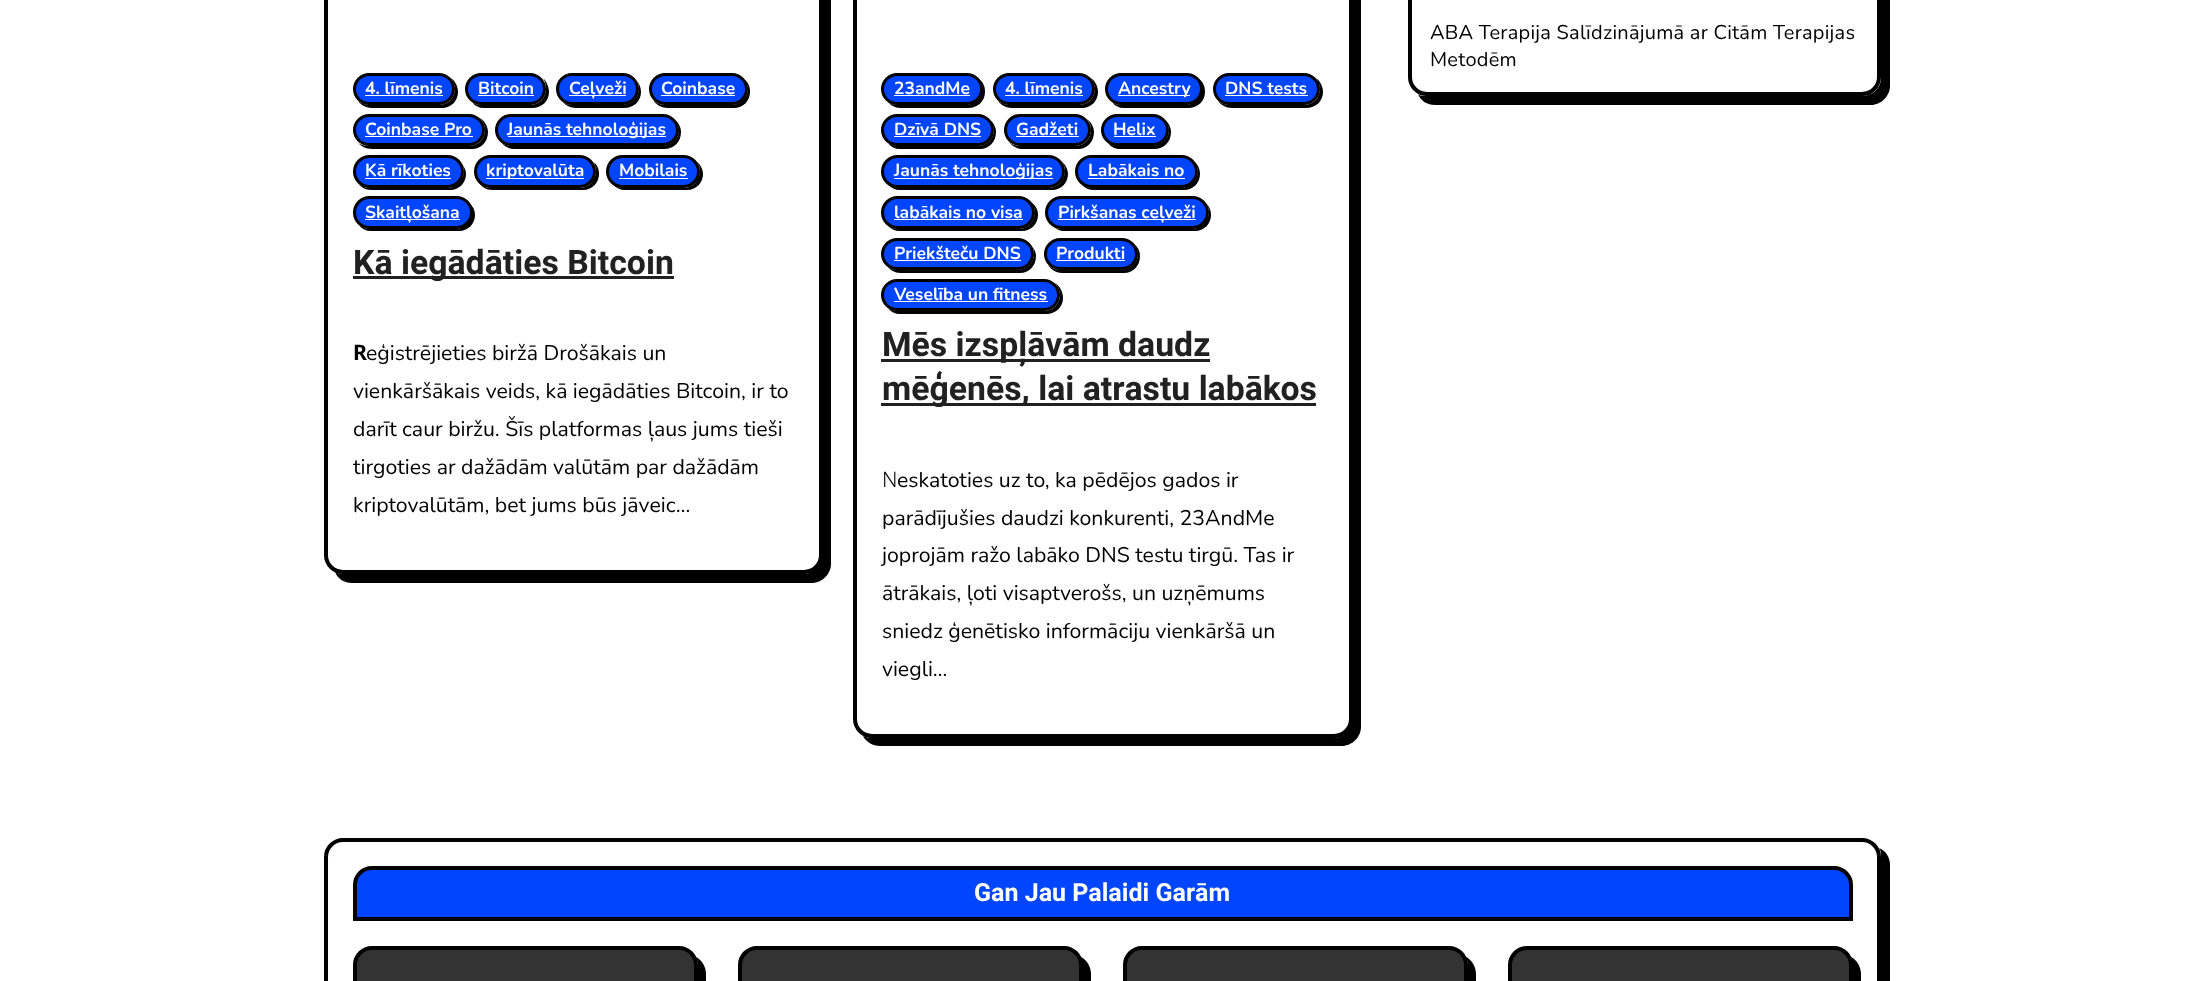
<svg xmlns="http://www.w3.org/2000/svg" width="2205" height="981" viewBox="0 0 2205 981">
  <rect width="100%" height="100%" fill="#ffffff"/>
  <path d="M1418 94C1421 101 1427 105 1435 105H1871C1881 105 1890 96 1890 86V-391C1890-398 1886-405 1879-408C1881-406 1881-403 1881-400V78C1881 88 1873 96 1862 96H1426C1423 96 1420 96 1418 94Z" fill="#000000"/>
  <rect x="1410" y="-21" width="469" height="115" rx="17" fill="#ffffff" stroke="#000000" stroke-width="4"/>
  <text x="1430" y="39" font-family="Nunito" font-size="20" letter-spacing="0.25" fill="#000000">ABA Terapija Salīdzinājumā ar Citām Terapijas</text>
  <text x="1430" y="66" font-family="Nunito" font-size="20" letter-spacing="0.25" fill="#000000">Metodēm</text>
  <path d="M335 572C338 579 344 583 352 583H812C822 583 831 574 831 564V-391C831-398 827-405 821-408C822-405 822-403 822-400V555C822 565 814 574 804 574H342C340 574 337 573 335 572Z" fill="#000000"/>
  <rect x="326" y="-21" width="495" height="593" rx="17" fill="#ffffff" stroke="#000000" stroke-width="4"/>
  <path d="M358 101C361 105 366 108 372 108H442C451 108 458 101 458 92C458 86 455 81 451 78C453 81 455 85 455 89C455 98 448 105 439 105H369C365 105 361 103 358 101Z" fill="#000000"/>
  <rect x="354.5" y="74.5" width="99" height="29" rx="14.5" fill="#0245ff" stroke="#000000" stroke-width="3"/>
  <text x="365" y="94" font-family="Nunito" font-size="17.5" font-weight="bold" fill="#ffffff">4. līmenis</text>
  <rect x="365" y="95" width="78" height="1" fill="#ffffff"/>
  <path d="M472 102C475 106 479 108 484 108H532C542 108 549 101 549 92C549 86 546 81 543 78C545 81 546 85 546 89C546 98 539 105 530 105H481C478 105 474 104 472 102Z" fill="#000000"/>
  <rect x="466.5" y="74.5" width="78" height="29" rx="14.5" fill="#0245ff" stroke="#000000" stroke-width="3"/>
  <text x="478" y="94" font-family="Nunito" font-size="17.5" font-weight="bold" fill="#ffffff">Bitcoin</text>
  <rect x="478" y="95" width="56" height="1" fill="#ffffff"/>
  <path d="M562 101C565 105 570 108 576 108H624C634 108 641 101 641 92C641 87 639 83 636 80C638 82 639 85 639 89C639 98 631 105 622 105H572C569 105 565 104 562 101Z" fill="#000000"/>
  <rect x="557.5" y="74.5" width="80" height="29" rx="14.5" fill="#0245ff" stroke="#000000" stroke-width="3"/>
  <rect x="569" y="95" width="57" height="1" fill="#ffffff"/>
  <text x="569" y="94" font-family="Nunito" font-size="17.5" font-weight="bold" fill="#ffffff">Ceļveži</text>
  <path d="M653 100C656 105 662 108 668 108H734C743 108 750 101 750 92C750 86 748 82 744 79C746 82 748 85 748 89C748 98 740 105 731 105H665C661 105 656 103 653 100Z" fill="#000000"/>
  <rect x="650.5" y="74.5" width="96" height="29" rx="14.5" fill="#0245ff" stroke="#000000" stroke-width="3"/>
  <text x="661" y="94" font-family="Nunito" font-size="17.5" font-weight="bold" fill="#ffffff">Coinbase</text>
  <rect x="661" y="95" width="74" height="1" fill="#ffffff"/>
  <path d="M358 143C361 146 366 149 372 149H472C481 149 488 142 488 132C488 127 485 121 480 118C483 121 485 126 485 130C485 139 478 146 469 146H369C365 146 361 145 358 143Z" fill="#000000"/>
  <rect x="354.5" y="115.5" width="129" height="29" rx="14.5" fill="#0245ff" stroke="#000000" stroke-width="3"/>
  <text x="365" y="135" font-family="Nunito" font-size="17.5" font-weight="bold" fill="#ffffff">Coinbase Pro</text>
  <rect x="365" y="136" width="108" height="1" fill="#ffffff"/>
  <path d="M502 143C505 147 510 149 514 149H664C674 149 681 142 681 132C681 128 679 123 675 120C677 123 679 126 679 130C679 139 671 146 662 146H511C508 146 505 145 502 143Z" fill="#000000"/>
  <rect x="496.5" y="115.5" width="181" height="29" rx="14.5" fill="#0245ff" stroke="#000000" stroke-width="3"/>
  <rect x="508" y="136" width="158" height="1" fill="#ffffff"/>
  <text x="507" y="135" font-family="Nunito" font-size="17.5" font-weight="bold" fill="#ffffff">Jaunās tehnoloģijas</text>
  <path d="M358 184C361 187 366 190 371 190H450C459 190 466 183 466 174C466 170 464 166 461 163C463 165 464 168 464 171C464 180 456 188 448 188H369C365 188 361 186 358 184Z" fill="#000000"/>
  <rect x="354.5" y="156.5" width="108" height="30" rx="15" fill="#0245ff" stroke="#000000" stroke-width="3"/>
  <text x="365" y="176" font-family="Nunito" font-size="17.5" font-weight="bold" fill="#ffffff">Kā rīkoties</text>
  <rect x="365" y="178" width="86" height="1" fill="#ffffff"/>
  <path d="M479 183C482 187 486 190 492 190H583C592 190 599 183 599 174C599 169 597 164 593 162C595 164 596 168 596 171C596 180 589 188 580 188H490C486 188 482 186 479 183Z" fill="#000000"/>
  <rect x="475.5" y="156.5" width="119" height="30" rx="15" fill="#0245ff" stroke="#000000" stroke-width="3"/>
  <rect x="486" y="178" width="98" height="1" fill="#ffffff"/>
  <text x="486" y="176" font-family="Nunito" font-size="17.5" font-weight="bold" fill="#ffffff">kriptovalūta</text>
  <path d="M613 184C616 188 620 190 625 190H687C696 190 703 183 703 174C703 169 700 164 696 161C699 164 700 167 700 171C700 180 693 188 684 188H622C619 188 615 186 613 184Z" fill="#000000"/>
  <rect x="607.5" y="156.5" width="91" height="30" rx="15" fill="#0245ff" stroke="#000000" stroke-width="3"/>
  <text x="619" y="176" font-family="Nunito" font-size="17.5" font-weight="bold" fill="#ffffff">Mobilais</text>
  <rect x="619" y="178" width="69" height="1" fill="#ffffff"/>
  <path d="M359 225C362 229 366 231 371 231H459C468 231 475 224 475 215C475 210 473 206 469 203C471 205 472 209 472 212C472 221 465 229 456 229H369C365 229 362 227 359 225Z" fill="#000000"/>
  <rect x="354.5" y="197.5" width="117" height="30" rx="15" fill="#0245ff" stroke="#000000" stroke-width="3"/>
  <rect x="365" y="219" width="95" height="1" fill="#ffffff"/>
  <text x="365" y="218" font-family="Nunito" font-size="17.5" font-weight="bold" fill="#ffffff">Skaitļošana</text>
  <rect x="353" y="276" width="321" height="3" fill="#212121"/>
  <text x="353" y="274" font-family="Heebo" font-size="33.75" font-weight="bold" fill="#212121">Kā iegādāties Bitcoin</text>
  <text x="353" y="360" font-family="Noto Sans" font-size="21.25" font-weight="bold" fill="#000000">R</text>
  <text x="366" y="360" font-family="Nunito" font-size="21.25" fill="#000000">eģistrējieties biržā Drošākais un</text>
  <text x="353" y="398" font-family="Nunito" font-size="21.25" fill="#000000">vienkāršākais veids, kā iegādāties Bitcoin, ir to</text>
  <text x="353" y="436" font-family="Nunito" font-size="21.25" fill="#000000">darīt caur biržu. Šīs platformas ļaus jums tieši</text>
  <text x="353" y="474" font-family="Nunito" font-size="21.25" fill="#000000">tirgoties ar dažādām valūtām par dažādām</text>
  <text x="353" y="512" font-family="Nunito" font-size="21.25" fill="#000000">kriptovalūtām, bet jums būs jāveic…</text>
  <path d="M863 736C866 742 873 746 880 746H1342C1352 746 1361 737 1361 727V-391C1361-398 1357-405 1351-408C1352-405 1352-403 1352-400V719C1352 729 1344 738 1334 738H871C868 738 866 737 863 736Z" fill="#000000"/>
  <rect x="855" y="-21" width="496" height="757" rx="17" fill="#ffffff" stroke="#000000" stroke-width="4"/>
  <path d="M887 101C890 105 895 108 900 108H968C978 108 985 101 985 92C985 86 983 82 979 79C981 82 982 85 982 89C982 98 975 105 966 105H898C894 105 890 104 887 101Z" fill="#000000"/>
  <rect x="882.5" y="74.5" width="99" height="29" rx="14.5" fill="#0245ff" stroke="#000000" stroke-width="3"/>
  <text x="894" y="94" font-family="Nunito" font-size="17.5" font-weight="bold" fill="#ffffff">23andMe</text>
  <rect x="894" y="95" width="76" height="1" fill="#ffffff"/>
  <path d="M998 101C1001 105 1006 108 1012 108H1082C1091 108 1098 101 1098 92C1098 86 1095 81 1091 78C1093 81 1095 85 1095 89C1095 98 1088 105 1079 105H1009C1005 105 1001 103 998 101Z" fill="#000000"/>
  <rect x="994.5" y="74.5" width="99" height="29" rx="14.5" fill="#0245ff" stroke="#000000" stroke-width="3"/>
  <text x="1005" y="94" font-family="Nunito" font-size="17.5" font-weight="bold" fill="#ffffff">4. līmenis</text>
  <rect x="1005" y="95" width="78" height="1" fill="#ffffff"/>
  <path d="M1112 102C1115 106 1119 108 1124 108H1188C1198 108 1205 101 1205 92C1205 86 1203 82 1199 79C1201 82 1202 85 1202 89C1202 98 1195 105 1186 105H1121C1118 105 1114 104 1112 102Z" fill="#000000"/>
  <rect x="1106.5" y="74.5" width="95" height="29" rx="14.5" fill="#0245ff" stroke="#000000" stroke-width="3"/>
  <rect x="1118" y="95" width="72" height="1" fill="#ffffff"/>
  <text x="1118" y="94" font-family="Nunito" font-size="17.5" font-weight="bold" fill="#ffffff">Ancestry</text>
  <path d="M1218 101C1221 105 1226 108 1232 108H1306C1316 108 1323 101 1323 92C1323 86 1320 81 1316 78C1318 81 1320 85 1320 89C1320 98 1313 105 1304 105H1229C1225 105 1221 103 1218 101Z" fill="#000000"/>
  <rect x="1214.5" y="74.5" width="104" height="29" rx="14.5" fill="#0245ff" stroke="#000000" stroke-width="3"/>
  <text x="1225" y="94" font-family="Nunito" font-size="17.5" font-weight="bold" fill="#ffffff">DNS tests</text>
  <rect x="1225" y="95" width="83" height="1" fill="#ffffff"/>
  <path d="M888 143C891 147 895 149 900 149H980C989 149 996 142 996 132C996 128 994 123 990 120C992 123 994 126 994 130C994 139 986 146 978 146H898C894 146 891 145 888 143Z" fill="#000000"/>
  <rect x="882.5" y="115.5" width="110" height="29" rx="14.5" fill="#0245ff" stroke="#000000" stroke-width="3"/>
  <text x="894" y="135" font-family="Nunito" font-size="17.5" font-weight="bold" fill="#ffffff">Dzīvā DNS</text>
  <rect x="894" y="136" width="87" height="1" fill="#ffffff"/>
  <path d="M1009 142C1012 146 1017 149 1022 149H1078C1087 149 1094 142 1094 132C1094 127 1091 122 1087 119C1090 122 1091 126 1091 130C1091 139 1084 146 1075 146H1020C1016 146 1012 145 1009 142Z" fill="#000000"/>
  <rect x="1005.5" y="115.5" width="84" height="29" rx="14.5" fill="#0245ff" stroke="#000000" stroke-width="3"/>
  <text x="1016" y="135" font-family="Nunito" font-size="17.5" font-weight="bold" fill="#ffffff">Gadžeti</text>
  <rect x="1016" y="136" width="63" height="1" fill="#ffffff"/>
  <path d="M1108 143C1111 147 1115 149 1120 149H1154C1164 149 1171 142 1171 132C1171 128 1169 123 1165 120C1167 123 1169 126 1169 130C1169 139 1161 146 1152 146H1118C1114 146 1111 145 1108 143Z" fill="#000000"/>
  <rect x="1102.5" y="115.5" width="65" height="29" rx="14.5" fill="#0245ff" stroke="#000000" stroke-width="3"/>
  <text x="1113" y="135" font-family="Nunito" font-size="17.5" font-weight="bold" fill="#ffffff">Helix</text>
  <rect x="1114" y="136" width="42" height="1" fill="#ffffff"/>
  <path d="M888 184C891 188 895 190 900 190H1052C1061 190 1068 183 1068 174C1068 169 1065 164 1061 161C1064 164 1065 167 1065 171C1065 180 1058 188 1049 188H898C894 188 890 186 888 184Z" fill="#000000"/>
  <rect x="882.5" y="156.5" width="181" height="30" rx="15" fill="#0245ff" stroke="#000000" stroke-width="3"/>
  <rect x="894" y="178" width="159" height="1" fill="#ffffff"/>
  <text x="894" y="176" font-family="Nunito" font-size="17.5" font-weight="bold" fill="#ffffff">Jaunās tehnoloģijas</text>
  <path d="M1082 185C1085 188 1089 190 1094 190H1184C1193 190 1200 183 1200 174C1200 169 1198 165 1195 162C1196 165 1198 168 1198 171C1198 180 1190 188 1181 188H1091C1088 188 1085 186 1082 185Z" fill="#000000"/>
  <rect x="1076.5" y="156.5" width="120" height="30" rx="15" fill="#0245ff" stroke="#000000" stroke-width="3"/>
  <text x="1088" y="176" font-family="Nunito" font-size="17.5" font-weight="bold" fill="#ffffff">Labākais no</text>
  <rect x="1088" y="178" width="97" height="1" fill="#ffffff"/>
  <path d="M888 226C891 229 895 231 900 231H1022C1031 231 1038 224 1038 215C1038 209 1035 205 1031 202C1033 205 1035 208 1035 212C1035 221 1028 229 1019 229H898C894 229 891 228 888 226Z" fill="#000000"/>
  <rect x="882.5" y="197.5" width="151" height="30" rx="15" fill="#0245ff" stroke="#000000" stroke-width="3"/>
  <text x="894" y="218" font-family="Nunito" font-size="17.5" font-weight="bold" fill="#ffffff">labākais no visa</text>
  <rect x="894" y="219" width="129" height="1" fill="#ffffff"/>
  <path d="M1053 226C1056 229 1060 231 1064 231H1195C1204 231 1211 224 1211 215C1211 210 1209 206 1206 203C1208 206 1209 209 1209 212C1209 221 1201 229 1192 229H1061C1058 229 1055 228 1053 226Z" fill="#000000"/>
  <rect x="1046.5" y="197.5" width="161" height="30" rx="15" fill="#0245ff" stroke="#000000" stroke-width="3"/>
  <rect x="1058" y="219" width="138" height="1" fill="#ffffff"/>
  <text x="1058" y="218" font-family="Nunito" font-size="17.5" font-weight="bold" fill="#ffffff">Pirkšanas ceļveži</text>
  <path d="M887 266C890 270 895 273 900 273H1020C1029 273 1036 266 1036 256C1036 252 1034 248 1031 245C1033 247 1034 250 1034 254C1034 263 1026 270 1018 270H898C894 270 890 269 887 266Z" fill="#000000"/>
  <rect x="882.5" y="239.5" width="150" height="29" rx="14.5" fill="#0245ff" stroke="#000000" stroke-width="3"/>
  <text x="894" y="259" font-family="Nunito" font-size="17.5" font-weight="bold" fill="#ffffff">Priekšteču DNS</text>
  <rect x="894" y="260" width="127" height="1" fill="#ffffff"/>
  <path d="M1048 265C1051 270 1057 273 1062 273H1124C1133 273 1140 266 1140 256C1140 251 1138 247 1134 244C1136 247 1138 250 1138 254C1138 263 1130 270 1121 270H1060C1056 270 1051 268 1048 265Z" fill="#000000"/>
  <rect x="1045.5" y="239.5" width="91" height="29" rx="14.5" fill="#0245ff" stroke="#000000" stroke-width="3"/>
  <text x="1056" y="259" font-family="Nunito" font-size="17.5" font-weight="bold" fill="#ffffff">Produkti</text>
  <rect x="1056" y="260" width="69" height="1" fill="#ffffff"/>
  <path d="M888 308C891 312 895 314 900 314H1046C1056 314 1063 307 1063 298C1063 292 1060 286 1055 283C1058 286 1060 291 1060 295C1060 304 1053 311 1044 311H898C894 311 891 310 888 308Z" fill="#000000"/>
  <rect x="882.5" y="280.5" width="176" height="29" rx="14.5" fill="#0245ff" stroke="#000000" stroke-width="3"/>
  <text x="894" y="300" font-family="Nunito" font-size="17.5" font-weight="bold" fill="#ffffff">Veselība un fitness</text>
  <rect x="894" y="301" width="154" height="1" fill="#ffffff"/>
  <rect x="881" y="359" width="329" height="3" fill="#212121"/>
  <text x="882" y="356" font-family="Heebo" font-size="33.75" font-weight="bold" fill="#212121">Mēs izspļāvām daudz</text>
  <rect x="881" y="403" width="435" height="3" fill="#212121"/>
  <text x="882" y="400" font-family="Heebo" font-size="33.75" font-weight="bold" fill="#212121">mēģenēs, lai atrastu labākos</text>
  <text x="882" y="487" font-family="Noto Sans" font-size="21.25" font-weight="300" fill="#000000">N</text>
  <text x="897" y="487" font-family="Nunito" font-size="21.25" fill="#000000">eskatoties uz to, ka pēdējos gados ir</text>
  <text x="882" y="525" font-family="Nunito" font-size="21.25" fill="#000000">parādījušies daudzi konkurenti, 23AndMe</text>
  <text x="882" y="562" font-family="Nunito" font-size="21.25" fill="#000000">joprojām ražo labāko DNS testu tirgū. Tas ir</text>
  <text x="882" y="600" font-family="Nunito" font-size="21.25" fill="#000000">ātrākais, ļoti visaptverošs, un uzņēmums</text>
  <text x="882" y="638" font-family="Nunito" font-size="21.25" fill="#000000">sniedz ģenētisko informāciju vienkāršā un</text>
  <text x="882" y="676" font-family="Nunito" font-size="21.25" fill="#000000">viegli…</text>
  <path d="M335 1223C338 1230 345 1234 352 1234H1871C1881 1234 1890 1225 1890 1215V865C1890 857 1886 851 1879 848C1881 850 1881 853 1881 856V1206C1881 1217 1873 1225 1862 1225H342C340 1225 337 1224 335 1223Z" fill="#000000"/>
  <rect x="326" y="840" width="1553" height="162" rx="17" fill="#ffffff" stroke="#000000" stroke-width="4"/>
  <path d="M372 868H1834C1843.5 868 1851 875.5 1851 885V919H355V885C355 875.5 362.5 868 372 868Z" fill="#0245ff" stroke="#000000" stroke-width="4"/>
  <text x="974" y="901" font-family="Heebo" font-size="25" font-weight="bold" fill="#ffffff">Gan Jau Palaidi Garām</text>
  <path d="M363 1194C366 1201 372 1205 380 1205H687C697 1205 706 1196 706 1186V974C706 967 702 960 696 957C697 960 698 962 698 965V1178C698 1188 689 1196 679 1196H371C368 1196 365 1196 363 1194Z" fill="#000000"/>
  <rect x="355" y="948" width="341" height="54" rx="17" fill="#333333" stroke="#000000" stroke-width="4"/>
  <path d="M748 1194C751 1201 757 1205 765 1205H1072C1082 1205 1091 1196 1091 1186V974C1091 967 1087 960 1081 957C1082 960 1082 962 1082 965V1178C1082 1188 1074 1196 1064 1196H756C753 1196 750 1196 748 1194Z" fill="#000000"/>
  <rect x="740" y="948" width="341" height="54" rx="17" fill="#333333" stroke="#000000" stroke-width="4"/>
  <path d="M1133 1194C1136 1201 1142 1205 1150 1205H1457C1467 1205 1476 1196 1476 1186V974C1476 967 1472 960 1466 957C1467 960 1468 962 1468 965V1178C1468 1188 1459 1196 1449 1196H1141C1138 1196 1135 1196 1133 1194Z" fill="#000000"/>
  <rect x="1125" y="948" width="341" height="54" rx="17" fill="#333333" stroke="#000000" stroke-width="4"/>
  <path d="M1518 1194C1521 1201 1527 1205 1535 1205H1842C1852 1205 1861 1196 1861 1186V974C1861 967 1857 960 1851 957C1852 960 1852 962 1852 965V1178C1852 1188 1844 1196 1834 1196H1526C1523 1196 1520 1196 1518 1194Z" fill="#000000"/>
  <rect x="1510" y="948" width="341" height="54" rx="17" fill="#333333" stroke="#000000" stroke-width="4"/>
</svg>
